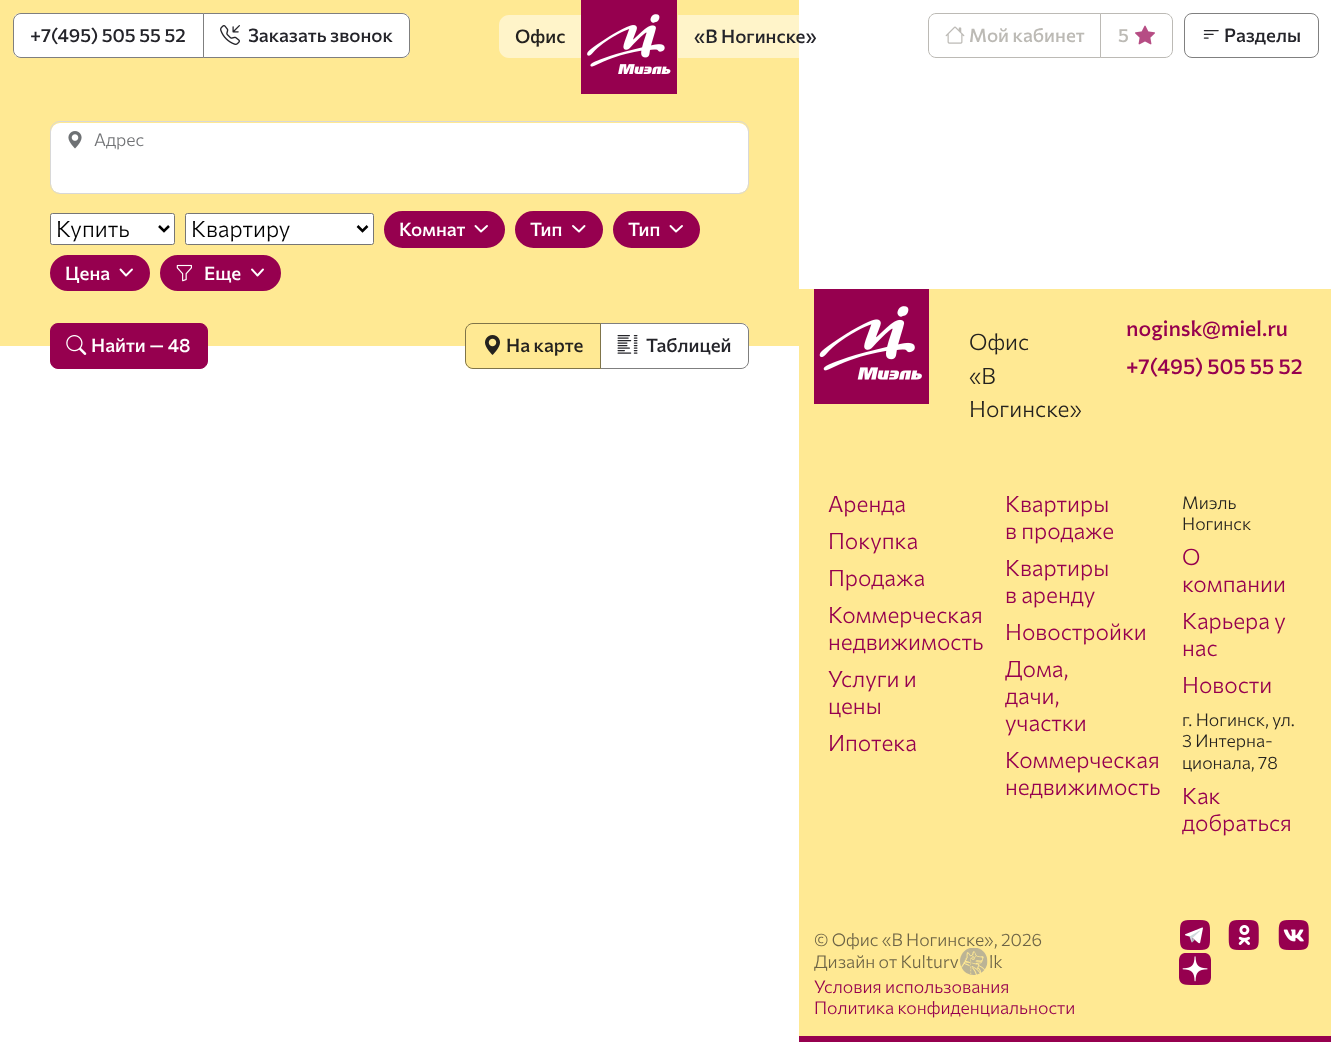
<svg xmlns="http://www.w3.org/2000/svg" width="1331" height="1042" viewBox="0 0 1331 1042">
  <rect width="100%" height="100%" fill="#ffffff"/>
  <rect x="0" y="0" width="799" height="346" fill="#ffe993"/>
  <path d="M21 13H204V58H21C16.5 58 13 54.5 13 50V21C13 16.5 16.5 13 21 13Z" fill="#ffffff"/>
  <path d="M21 13.5H203.5V57.5H21C17 57.5 13.5 54 13.5 50V21C13.5 17 17 13.5 21 13.5Z" fill="none" stroke="#000000" stroke-opacity="0.5"/>
  <text x="30" y="42" font-family="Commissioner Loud" font-size="18.75" font-weight="500" fill="#24242a">+7(495) 505 55 52</text>
  <path d="M203 13H402C406.5 13 410 16.5 410 21V50C410 54.5 406.5 58 402 58H203Z" fill="#ffffff"/>
  <path d="M203.5 13.5H402C406 13.5 409.5 17 409.5 21V50C409.5 54 406 57.5 402 57.5H203.5Z" fill="none" stroke="#000000" stroke-opacity="0.5"/>
  <image x="220" y="25" width="20" height="20" href="img1.png"/>
  <text x="248" y="42" font-family="Commissioner Loud" font-size="18.75" font-weight="500" fill="#24242a">Заказать звонок</text>
  <path d="M936 13.5H1100.5V57.5H936C932 57.5 928.5 54 928.5 50V21C928.5 17 932 13.5 936 13.5Z" fill="none" stroke="#bcbab5"/>
  <image x="945" y="26" width="20" height="18" href="img2.png"/>
  <text x="969" y="42" font-family="Commissioner Loud" font-size="18.75" font-weight="500" fill="#bcbab5">Мой кабинет</text>
  <path d="M1100.5 13.5H1165C1169 13.5 1172.5 17 1172.5 21V50C1172.5 54 1169 57.5 1165 57.5H1100.5Z" fill="#ffffff" stroke="#bcbab5"/>
  <text x="1118" y="42" font-family="Commissioner Loud" font-size="18.75" font-weight="500" fill="#bcbab5">5</text>
  <image x="1135" y="25" width="20" height="20" href="img3.png"/>
  <rect x="1184.5" y="13.5" width="134" height="44" rx="7.5" fill="none" stroke="#808080"/>
  <image x="1203" y="30" width="16" height="9" href="img4.png"/>
  <text x="1224" y="42" font-family="Commissioner Loud" font-size="18.75" font-weight="500" fill="#24242a">Разделы</text>
  <path d="M509 15H581V58H509C503.5 58 499 53.5 499 48V25C499 19.5 503.5 15 509 15Z" fill="#fff4c9"/>
  <text x="515" y="43" font-family="Commissioner Loud" font-size="18.75" font-weight="500" fill="#24221f">Офис</text>
  <image x="581" y="0" width="96" height="94" href="img5.png"/>
  <path d="M678 15H823C828.5 15 833 19.5 833 25V48C833 53.5 828.5 58 823 58H678Z" fill="#ffffff" fill-opacity="0.5"/>
  <text x="694" y="43" font-family="Commissioner Loud" font-size="18.75" font-weight="500" fill="#24242a">«В Ногинске»</text>
  <rect x="51" y="123" width="697" height="70" rx="9" fill="#ffffff"/>
  <rect x="50.5" y="121.5" width="698" height="72" rx="9.5" fill="none" stroke="#d8d8d8"/>
  <image x="68" y="131" width="14" height="18" href="img6.png"/>
  <text x="94" y="146" font-family="Commissioner Loud" font-size="17.5" font-weight="300" fill="#6f7174">Адрес</text>
  <rect x="50.5" y="213.5" width="124" height="31" rx="2" fill="#ffffff" stroke="#767676"/>
  <path d="M159 226L164 231L169 226" fill="none" stroke="#000000" stroke-width="2.5"/>
  <text x="56" y="237" font-family="Commissioner Loud" font-size="22.5" font-weight="300" fill="#000000">Купить</text>
  <rect x="185.5" y="213.5" width="188" height="31" rx="2" fill="#ffffff" stroke="#767676"/>
  <path d="M357.5 226L362.5 231L367.5 226" fill="none" stroke="#000000" stroke-width="2.5"/>
  <text x="191" y="237" font-family="Commissioner Loud" font-size="22.5" font-weight="300" fill="#000000">Квартиру</text>
  <rect x="385.5" y="212.5" width="118" height="34" rx="17" fill="#96004f" stroke="#96004f" stroke-width="3"/>
  <text x="399" y="236" font-family="Commissioner Loud" font-size="18.75" font-weight="500" fill="#ffffff">Комнат</text>
  <path d="M475.5 226L481 231.5L487 226" fill="none" stroke="#ffffff" stroke-width="1.9" stroke-linecap="round" stroke-linejoin="round"/>
  <rect x="516.5" y="212.5" width="85" height="34" rx="17" fill="#96004f" stroke="#96004f" stroke-width="3"/>
  <text x="530" y="236" font-family="Commissioner Loud" font-size="18.75" font-weight="500" fill="#ffffff">Тип</text>
  <path d="M573 226L579 231.5L584.5 226" fill="none" stroke="#ffffff" stroke-width="1.9" stroke-linecap="round" stroke-linejoin="round"/>
  <rect x="614.5" y="212.5" width="84" height="34" rx="17" fill="#96004f" stroke="#96004f" stroke-width="3"/>
  <text x="628" y="236" font-family="Commissioner Loud" font-size="18.75" font-weight="500" fill="#ffffff">Тип</text>
  <path d="M670.5 226L676 231.5L682 226" fill="none" stroke="#ffffff" stroke-width="1.9" stroke-linecap="round" stroke-linejoin="round"/>
  <rect x="51.5" y="256.5" width="97" height="33" rx="16.5" fill="#96004f" stroke="#96004f" stroke-width="3"/>
  <text x="65" y="280" font-family="Commissioner Loud" font-size="18.75" font-weight="500" fill="#ffffff">Цена</text>
  <path d="M120.5 269.5L126 275.5L132 269.5" fill="none" stroke="#ffffff" stroke-width="1.9" stroke-linecap="round" stroke-linejoin="round"/>
  <rect x="161.5" y="256.5" width="118" height="33" rx="16.5" fill="#96004f" stroke="#96004f" stroke-width="3"/>
  <image x="176" y="264" width="16" height="18" href="img7.png"/>
  <text x="204" y="280" font-family="Commissioner Loud" font-size="18.75" font-weight="500" fill="#ffffff">Еще</text>
  <path d="M252 269.5L257.5 275.5L263 269.5" fill="none" stroke="#ffffff" stroke-width="1.9" stroke-linecap="round" stroke-linejoin="round"/>
  <rect x="50.5" y="323.5" width="157" height="45" rx="7.5" fill="#96004f" stroke="#96004f"/>
  <image x="66" y="335" width="21" height="20" href="img8.png"/>
  <text x="91" y="352" font-family="Commissioner Loud" font-size="18.75" font-weight="500" fill="#ffffff">Найти — 48</text>
  <path d="M600 323H741C745.5 323 749 326.5 749 331V361C749 365.5 745.5 369 741 369H600Z" fill="#ffffff"/>
  <path d="M600.5 323.5H741C745 323.5 748.5 327 748.5 331V361C748.5 365 745 368.5 741 368.5H600.5Z" fill="none" stroke="#000000" stroke-opacity="0.5"/>
  <path d="M473 323H601V369H473C468.5 369 465 365.5 465 361V331C465 326.5 468.5 323 473 323Z" fill="#ffe993"/>
  <path d="M473 323.5H600.5V368.5H473C469 368.5 465.5 365 465.5 361V331C465.5 327 469 323.5 473 323.5Z" fill="none" stroke="#000000" stroke-opacity="0.5"/>
  <image x="485" y="335" width="15" height="20" href="img9.png"/>
  <text x="506" y="352" font-family="Commissioner Loud" font-size="18.75" font-weight="500" fill="#24221f">На карте</text>
  <image x="617" y="335" width="21" height="19" href="img10.png"/>
  <text x="646" y="352" font-family="Commissioner Loud" font-size="18.75" font-weight="500" fill="#24242a">Таблицей</text>
  <rect x="799" y="289" width="532" height="747" fill="#ffe993"/>
  <image x="814" y="289" width="115" height="115" href="img11.png"/>
  <text x="969" y="350" font-family="Commissioner Loud" font-size="22.5" font-weight="300" fill="#24221f">Офис</text>
  <text x="969" y="384" font-family="Commissioner Loud" font-size="22.5" font-weight="300" fill="#24221f">«В</text>
  <text x="969" y="417" font-family="Commissioner Loud" font-size="22.5" font-weight="300" fill="#24221f">Ногинске»</text>
  <text x="1126" y="336" font-family="Commissioner Loud" font-size="21.25" font-weight="500" fill="#96004f">noginsk@miel.ru</text>
  <text x="1126" y="374" font-family="Commissioner Loud" font-size="21.25" font-weight="500" fill="#96004f">+7(495) 505 55 52</text>
  <text x="828" y="512" font-family="Commissioner Loud" font-size="22.5" font-weight="300" fill="#96004f">Аренда</text>
  <text x="828" y="549" font-family="Commissioner Loud" font-size="22.5" font-weight="300" fill="#96004f">Покупка</text>
  <text x="828" y="586" font-family="Commissioner Loud" font-size="22.5" font-weight="300" fill="#96004f">Продажа</text>
  <text x="828" y="623" font-family="Commissioner Loud" font-size="22.5" font-weight="300" fill="#96004f">Коммерческая</text>
  <text x="828" y="650" font-family="Commissioner Loud" font-size="22.5" font-weight="300" fill="#96004f">недвижимость</text>
  <text x="828" y="687" font-family="Commissioner Loud" font-size="22.5" font-weight="300" fill="#96004f">Услуги и</text>
  <text x="828" y="714" font-family="Commissioner Loud" font-size="22.5" font-weight="300" fill="#96004f">цены</text>
  <text x="828" y="751" font-family="Commissioner Loud" font-size="22.5" font-weight="300" fill="#96004f">Ипотека</text>
  <text x="1005" y="512" font-family="Commissioner Loud" font-size="22.5" font-weight="300" fill="#96004f">Квартиры</text>
  <text x="1005" y="539" font-family="Commissioner Loud" font-size="22.5" font-weight="300" fill="#96004f">в продаже</text>
  <text x="1005" y="576" font-family="Commissioner Loud" font-size="22.5" font-weight="300" fill="#96004f">Квартиры</text>
  <text x="1005" y="603" font-family="Commissioner Loud" font-size="22.5" font-weight="300" fill="#96004f">в аренду</text>
  <text x="1005" y="640" font-family="Commissioner Loud" font-size="22.5" font-weight="300" fill="#96004f">Новостройки</text>
  <text x="1005" y="677" font-family="Commissioner Loud" font-size="22.5" font-weight="300" fill="#96004f">Дома,</text>
  <text x="1005" y="704" font-family="Commissioner Loud" font-size="22.5" font-weight="300" fill="#96004f">дачи,</text>
  <text x="1005" y="731" font-family="Commissioner Loud" font-size="22.5" font-weight="300" fill="#96004f">участки</text>
  <text x="1005" y="768" font-family="Commissioner Loud" font-size="22.5" font-weight="300" fill="#96004f">Коммерческая</text>
  <text x="1005" y="795" font-family="Commissioner Loud" font-size="22.5" font-weight="300" fill="#96004f">недвижимость</text>
  <text x="1182" y="509" font-family="Commissioner Loud" font-size="17.5" font-weight="300" fill="#24221f">Миэль</text>
  <text x="1182" y="530" font-family="Commissioner Loud" font-size="17.5" font-weight="300" fill="#24221f">Ногинск</text>
  <text x="1182" y="565" font-family="Commissioner Loud" font-size="22.5" font-weight="300" fill="#96004f">О</text>
  <text x="1182" y="592" font-family="Commissioner Loud" font-size="22.5" font-weight="300" fill="#96004f">компании</text>
  <text x="1182" y="629" font-family="Commissioner Loud" font-size="22.5" font-weight="300" fill="#96004f">Карьера у</text>
  <text x="1182" y="656" font-family="Commissioner Loud" font-size="22.5" font-weight="300" fill="#96004f">нас</text>
  <text x="1182" y="693" font-family="Commissioner Loud" font-size="22.5" font-weight="300" fill="#96004f">Новости</text>
  <text x="1182" y="726" font-family="Commissioner Loud" font-size="17.5" font-weight="300" fill="#24221f">г. Ногинск, ул.</text>
  <text x="1182" y="747" font-family="Commissioner Loud" font-size="17.5" font-weight="300" fill="#24221f">3 Интерна-</text>
  <text x="1182" y="769" font-family="Commissioner Loud" font-size="17.5" font-weight="300" fill="#24221f">ционала, 78</text>
  <text x="1182" y="804" font-family="Commissioner Loud" font-size="22.5" font-weight="300" fill="#96004f">Как</text>
  <text x="1182" y="831" font-family="Commissioner Loud" font-size="22.5" font-weight="300" fill="#96004f">добраться</text>
  <rect x="799" y="1036" width="532" height="6" fill="#96004f"/>
  <text x="814" y="946" font-family="Commissioner Loud" font-size="17.5" font-weight="300" fill="#6d6446">© Офис «В Ногинске», 2026</text>
  <text x="814" y="968" font-family="Commissioner Loud" font-size="17.5" font-weight="300" fill="#6d6446">Дизайн от Kulturv</text>
  <image x="960" y="948" width="28" height="27" href="img12.png"/>
  <text x="989" y="968" font-family="Commissioner Loud" font-size="17.5" font-weight="300" fill="#6d6446">lk</text>
  <text x="814" y="993" font-family="Commissioner Loud" font-size="17.5" font-weight="300" fill="#96004f">Условия использования</text>
  <text x="814" y="1014" font-family="Commissioner Loud" font-size="17.5" font-weight="300" fill="#96004f">Политика конфиденциальности</text>
  <image x="1180" y="920" width="30" height="30" href="img13.png"/>
  <image x="1228" y="920" width="31" height="30" href="img14.png"/>
  <image x="1278" y="920" width="31" height="30" href="img15.png"/>
  <image x="1179" y="953" width="32" height="32" href="img16.png"/>
</svg>
